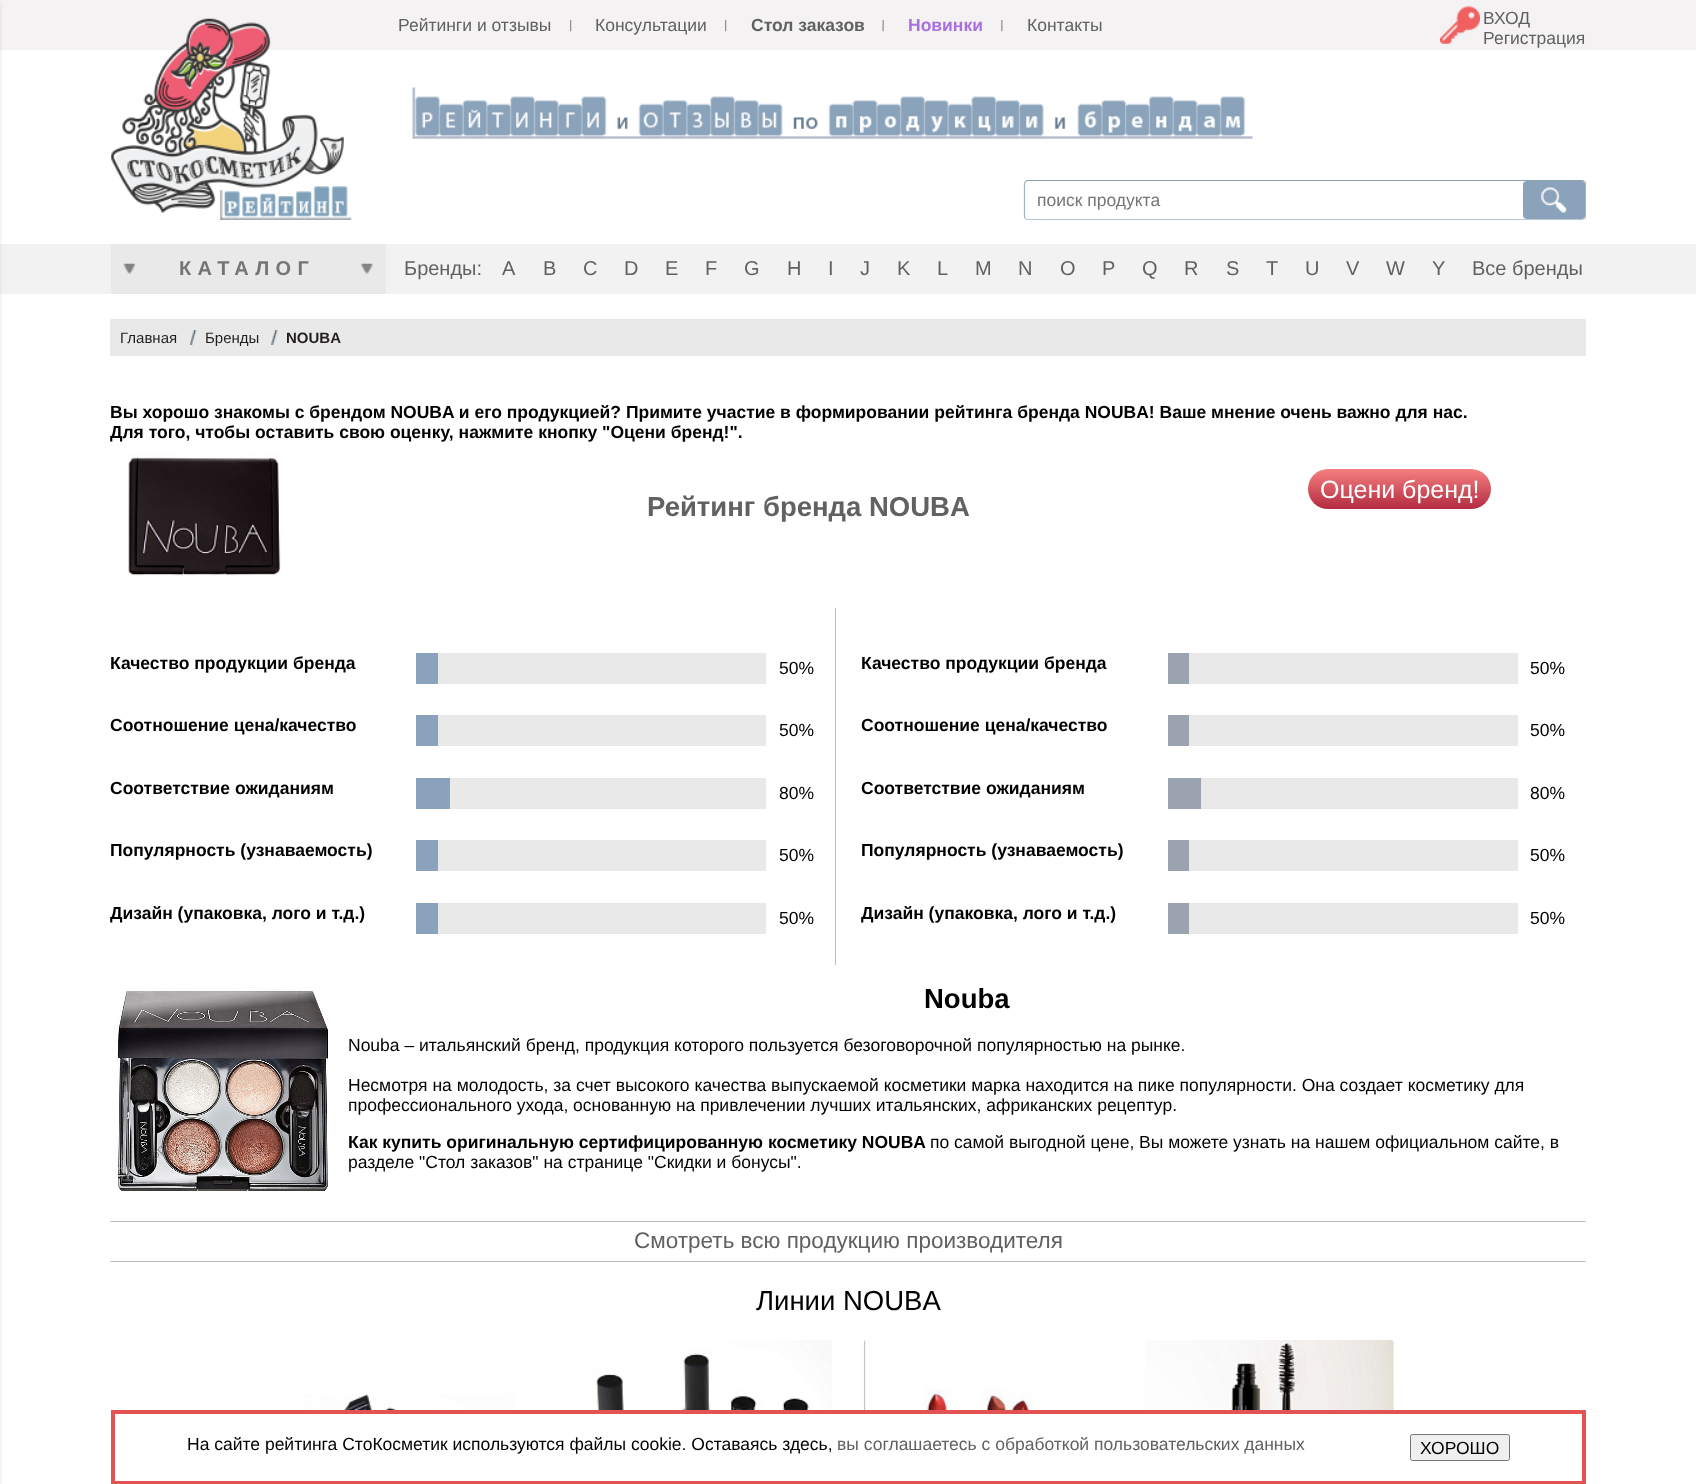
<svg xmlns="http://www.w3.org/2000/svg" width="1696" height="1484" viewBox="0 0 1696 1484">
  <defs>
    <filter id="blur1" x="-50%" y="-200%" width="200%" height="500%"><feGaussianBlur stdDeviation="2"/></filter>
    <clipPath id="clip1"><rect x="411" y="180" width="1175" height="40"/></clipPath>
    <linearGradient id="g1" gradientUnits="userSpaceOnUse" x1="1399" y1="469" x2="1399" y2="509"><stop offset="0" stop-color="#f58080"/><stop offset="1" stop-color="#b42b41"/></linearGradient>
  </defs>
  <rect width="100%" height="100%" fill="#ffffff"/>
  <rect x="0" y="0" width="1696" height="50" fill="#f4f2f2"/>
  <rect x="0" y="244" width="1696" height="50" fill="#f2f2f2"/>
  <rect x="-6" y="3" width="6" height="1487" fill="#000000" fill-opacity="0.1" filter="url(#blur1)"/>
  <text x="398" y="31" font-family="Liberation Sans" font-size="17.5" fill="#616161">Рейтинги и отзывы</text>
  <image x="570" y="20" width="2" height="12" href="img1.png"/>
  <text x="595" y="31" font-family="Liberation Sans" font-size="17.5" fill="#616161">Консультации</text>
  <image x="725" y="20" width="2" height="12" href="img1.png"/>
  <text x="751" y="31" font-family="Liberation Sans" font-size="17.5" font-weight="bold" fill="#616161">Стол заказов</text>
  <image x="882" y="20" width="2" height="12" href="img2.png"/>
  <text x="908" y="31" font-family="Liberation Sans" font-size="17.5" font-weight="bold" fill="#aa70e1">Новинки</text>
  <image x="1001" y="20" width="2" height="12" href="img3.png"/>
  <text x="1027" y="31" font-family="Liberation Sans" font-size="17.5" fill="#616161">Контакты</text>
  <image x="1440" y="6" width="40" height="38" href="img4.png"/>
  <text x="1483" y="24" font-family="Liberation Sans" font-size="17.5" fill="#616161">ВХОД</text>
  <text x="1483" y="44" font-family="Liberation Sans" font-size="17.5" fill="#616161">Регистрация</text>
  <image x="111" y="18" width="241" height="202" href="img5.png"/>
  <image x="412" y="87" width="841" height="52" href="img6.png"/>
  <g clip-path="url(#clip1)">
    <path d="M1025.5 181.5L1027.5 180.5H1582.5L1584.5 181.5" fill="none" stroke="#8ca3ae" stroke-width="1.2"/>
    <path d="M1584.5 181.5C1585.5 182 1585.5 183 1585.5 184V216C1585.5 217 1585.5 218 1584.5 218.5" fill="none" stroke="#a0b4be" stroke-width="1.2"/>
    <path d="M1584.5 218.5L1582.5 219.5H1027.5L1025.5 218.5" fill="none" stroke="#b6c8d1" stroke-width="1.2"/>
  </g>
  <path d="M1025.5 218.5C1024.5 218 1024.5 217 1024.5 216V184C1024.5 183 1024.5 182 1025.5 181.5" fill="none" stroke="#a0b4be" stroke-width="1.2"/>
  <text x="1037" y="206" font-family="Liberation Sans" font-size="17.5" fill="#757575">поиск продукта</text>
  <rect x="1523" y="181" width="62" height="38" rx="4" fill="#8aa2ba"/>
  <image x="1541" y="187" width="26" height="26" href="img7.png"/>
  <rect x="111" y="244" width="275" height="50" fill="#e9e9e9"/>
  <image x="123" y="263" width="12" height="11" href="img8.png"/>
  <text x="179" y="275" font-family="Liberation Sans" font-size="20" font-weight="bold" letter-spacing="6.25" fill="#757575">КАТАЛОГ</text>
  <image x="361" y="263" width="12" height="11" href="img9.png"/>
  <text x="404" y="275" font-family="Liberation Sans" font-size="20" fill="#616161">Бренды:</text>
  <text x="502" y="275" font-family="Liberation Sans" font-size="20" fill="#616161">A</text>
  <text x="543" y="275" font-family="Liberation Sans" font-size="20" fill="#616161">B</text>
  <text x="583" y="275" font-family="Liberation Sans" font-size="20" fill="#616161">C</text>
  <text x="624" y="275" font-family="Liberation Sans" font-size="20" fill="#616161">D</text>
  <text x="665" y="275" font-family="Liberation Sans" font-size="20" fill="#616161">E</text>
  <text x="705" y="275" font-family="Liberation Sans" font-size="20" fill="#616161">F</text>
  <text x="744" y="275" font-family="Liberation Sans" font-size="20" fill="#616161">G</text>
  <text x="787" y="275" font-family="Liberation Sans" font-size="20" fill="#616161">H</text>
  <text x="828" y="275" font-family="Liberation Sans" font-size="20" fill="#616161">I</text>
  <text x="860" y="275" font-family="Liberation Sans" font-size="20" fill="#616161">J</text>
  <text x="897" y="275" font-family="Liberation Sans" font-size="20" fill="#616161">K</text>
  <text x="937" y="275" font-family="Liberation Sans" font-size="20" fill="#616161">L</text>
  <text x="975" y="275" font-family="Liberation Sans" font-size="20" fill="#616161">M</text>
  <text x="1018" y="275" font-family="Liberation Sans" font-size="20" fill="#616161">N</text>
  <text x="1060" y="275" font-family="Liberation Sans" font-size="20" fill="#616161">O</text>
  <text x="1102" y="275" font-family="Liberation Sans" font-size="20" fill="#616161">P</text>
  <text x="1142" y="275" font-family="Liberation Sans" font-size="20" fill="#616161">Q</text>
  <text x="1184" y="275" font-family="Liberation Sans" font-size="20" fill="#616161">R</text>
  <text x="1226" y="275" font-family="Liberation Sans" font-size="20" fill="#616161">S</text>
  <text x="1266" y="275" font-family="Liberation Sans" font-size="20" fill="#616161">T</text>
  <text x="1305" y="275" font-family="Liberation Sans" font-size="20" fill="#616161">U</text>
  <text x="1346" y="275" font-family="Liberation Sans" font-size="20" fill="#616161">V</text>
  <text x="1386" y="275" font-family="Liberation Sans" font-size="20" fill="#616161">W</text>
  <text x="1432" y="275" font-family="Liberation Sans" font-size="20" fill="#616161">Y</text>
  <text x="1472" y="275" font-family="Liberation Sans" font-size="20" fill="#616161">Все бренды</text>
  <rect x="110" y="319" width="1476" height="37" fill="#e9e9e9"/>
  <text x="120" y="343" font-family="Liberation Sans" font-size="15" fill="#231f20">Главная</text>
  <image x="190" y="330" width="7" height="15" href="img10.png"/>
  <text x="205" y="343" font-family="Liberation Sans" font-size="15" fill="#231f20">Бренды</text>
  <image x="271" y="330" width="7" height="15" href="img11.png"/>
  <text x="286" y="343" font-family="Liberation Sans" font-size="15" font-weight="bold" fill="#231f20">NOUBA</text>
  <text x="110" y="418" font-family="Liberation Sans" font-size="17.5" font-weight="bold" fill="#000000">Вы хорошо знакомы с брендом NOUBA и его продукцией? Примите участие в формировании рейтинга бренда NOUBA! Ваше мнение очень важно для нас.</text>
  <text x="110" y="438" font-family="Liberation Sans" font-size="17.5" font-weight="bold" fill="#000000">Для того, чтобы оставить свою оценку, нажмите кнопку "Оцени бренд!".</text>
  <image x="128" y="454" width="153" height="122" href="img12.png"/>
  <rect x="1308" y="469" width="183" height="40" rx="20" fill="url(#g1)"/>
  <text x="1320" y="498" font-family="Liberation Sans" font-size="25" fill="#ffffff">Оцени бренд!</text>
  <text x="647" y="516" font-family="Liberation Sans" font-size="27.5" font-weight="bold" fill="#616161">Рейтинг бренда NOUBA</text>
  <rect x="835" y="608" width="1" height="357" fill="#bdbdbd"/>
  <text x="110" y="669" font-family="Liberation Sans" font-size="17.5" font-weight="bold" fill="#000000">Качество продукции бренда</text>
  <rect x="438" y="653" width="328" height="31" fill="#e9e9e9"/>
  <rect x="416" y="653" width="22" height="31" fill="#8aa2bc"/>
  <text x="779" y="674" font-family="Liberation Sans" font-size="17.5" fill="#000000">50%</text>
  <text x="110" y="731" font-family="Liberation Sans" font-size="17.5" font-weight="bold" fill="#000000">Соотношение цена/качество</text>
  <rect x="438" y="715" width="328" height="31" fill="#e9e9e9"/>
  <rect x="416" y="715" width="22" height="31" fill="#8aa2bc"/>
  <text x="779" y="736" font-family="Liberation Sans" font-size="17.5" fill="#000000">50%</text>
  <text x="110" y="794" font-family="Liberation Sans" font-size="17.5" font-weight="bold" fill="#000000">Соответствие ожиданиям</text>
  <rect x="450" y="778" width="316" height="31" fill="#e9e9e9"/>
  <rect x="416" y="778" width="34" height="31" fill="#8aa2bc"/>
  <text x="779" y="799" font-family="Liberation Sans" font-size="17.5" fill="#000000">80%</text>
  <text x="110" y="856" font-family="Liberation Sans" font-size="17.5" font-weight="bold" fill="#000000">Популярность (узнаваемость)</text>
  <rect x="438" y="840" width="328" height="31" fill="#e9e9e9"/>
  <rect x="416" y="840" width="22" height="31" fill="#8aa2bc"/>
  <text x="779" y="861" font-family="Liberation Sans" font-size="17.5" fill="#000000">50%</text>
  <text x="110" y="919" font-family="Liberation Sans" font-size="17.5" font-weight="bold" fill="#000000">Дизайн (упаковка, лого и т.д.)</text>
  <rect x="438" y="903" width="328" height="31" fill="#e9e9e9"/>
  <rect x="416" y="903" width="22" height="31" fill="#8aa2bc"/>
  <text x="779" y="924" font-family="Liberation Sans" font-size="17.5" fill="#000000">50%</text>
  <text x="861" y="669" font-family="Liberation Sans" font-size="17.5" font-weight="bold" fill="#000000">Качество продукции бренда</text>
  <rect x="1189" y="653" width="329" height="31" fill="#e9e9e9"/>
  <rect x="1168" y="653" width="21" height="31" fill="#9ba3ae"/>
  <text x="1530" y="674" font-family="Liberation Sans" font-size="17.5" fill="#000000">50%</text>
  <text x="861" y="731" font-family="Liberation Sans" font-size="17.5" font-weight="bold" fill="#000000">Соотношение цена/качество</text>
  <rect x="1189" y="715" width="329" height="31" fill="#e9e9e9"/>
  <rect x="1168" y="715" width="21" height="31" fill="#9ba3ae"/>
  <text x="1530" y="736" font-family="Liberation Sans" font-size="17.5" fill="#000000">50%</text>
  <text x="861" y="794" font-family="Liberation Sans" font-size="17.5" font-weight="bold" fill="#000000">Соответствие ожиданиям</text>
  <rect x="1201" y="778" width="317" height="31" fill="#e9e9e9"/>
  <rect x="1168" y="778" width="33" height="31" fill="#9ba3ae"/>
  <text x="1530" y="799" font-family="Liberation Sans" font-size="17.5" fill="#000000">80%</text>
  <text x="861" y="856" font-family="Liberation Sans" font-size="17.5" font-weight="bold" fill="#000000">Популярность (узнаваемость)</text>
  <rect x="1189" y="840" width="329" height="31" fill="#e9e9e9"/>
  <rect x="1168" y="840" width="21" height="31" fill="#9ba3ae"/>
  <text x="1530" y="861" font-family="Liberation Sans" font-size="17.5" fill="#000000">50%</text>
  <text x="861" y="919" font-family="Liberation Sans" font-size="17.5" font-weight="bold" fill="#000000">Дизайн (упаковка, лого и т.д.)</text>
  <rect x="1189" y="903" width="329" height="31" fill="#e9e9e9"/>
  <rect x="1168" y="903" width="21" height="31" fill="#9ba3ae"/>
  <text x="1530" y="924" font-family="Liberation Sans" font-size="17.5" fill="#000000">50%</text>
  <image x="118" y="989" width="211" height="202" href="img13.png"/>
  <text x="924" y="1008" font-family="Liberation Sans" font-size="27.5" font-weight="bold" fill="#000000">Nouba</text>
  <text x="348" y="1051" font-family="Liberation Sans" font-size="17.5" fill="#000000">Nouba – итальянский бренд, продукция которого пользуется безоговорочной популярностью на рынке.</text>
  <text x="348" y="1091" font-family="Liberation Sans" font-size="17.5" fill="#000000">Несмотря на молодость, за счет высокого качества выпускаемой косметики марка находится на пике популярности. Она создает косметику для</text>
  <text x="348" y="1111" font-family="Liberation Sans" font-size="17.5" fill="#000000">профессионального ухода, основанную на привлечении лучших итальянских, африканских рецептур.</text>
  <text x="348" y="1148" font-family="Liberation Sans" font-size="17.5" font-weight="bold" fill="#000000">Как купить оригинальную сертифицированную косметику NOUBA</text>
  <text x="930" y="1148" font-family="Liberation Sans" font-size="17.5" fill="#000000">по самой выгодной цене, Вы можете узнать на нашем официальном сайте, в</text>
  <text x="348" y="1168" font-family="Liberation Sans" font-size="17.5" fill="#000000">разделе "Стол заказов" на странице "Скидки и бонусы".</text>
  <rect x="110" y="1221" width="1476" height="1" fill="#bdbdbd"/>
  <text x="634" y="1248" font-family="Liberation Sans" font-size="22.5" fill="#616161">Смотреть всю продукцию производителя</text>
  <rect x="110" y="1261" width="1476" height="1" fill="#bdbdbd"/>
  <text x="756" y="1310" font-family="Liberation Sans" font-size="27.5" fill="#000000">Линии NOUBA</text>
  <image x="304" y="1394" width="210" height="16" href="img14.png"/>
  <image x="588" y="1340" width="244" height="70" href="img15.png"/>
  <image x="863" y="1340" width="251" height="70" href="img16.png"/>
  <image x="1145" y="1340" width="249" height="70" href="img17.png"/>
  <rect x="113" y="1412" width="1471" height="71" fill="none" stroke="#e35353" stroke-width="4"/>
  <text x="187" y="1450" font-family="Liberation Sans" font-size="17.5" fill="#000000">На сайте рейтинга СтоКосметик используются файлы cookie. Оставаясь здесь,</text>
  <text x="837" y="1450" font-family="Liberation Sans" font-size="17.5" fill="#616161">вы соглашаетесь с обработкой пользовательских данных</text>
  <rect x="1410.5" y="1434.5" width="99" height="26" rx="2" fill="#efefef" stroke="#767676"/>
  <text x="1420" y="1454" font-family="Liberation Sans" font-size="17.5" fill="#000000">ХОРОШО</text>
</svg>
